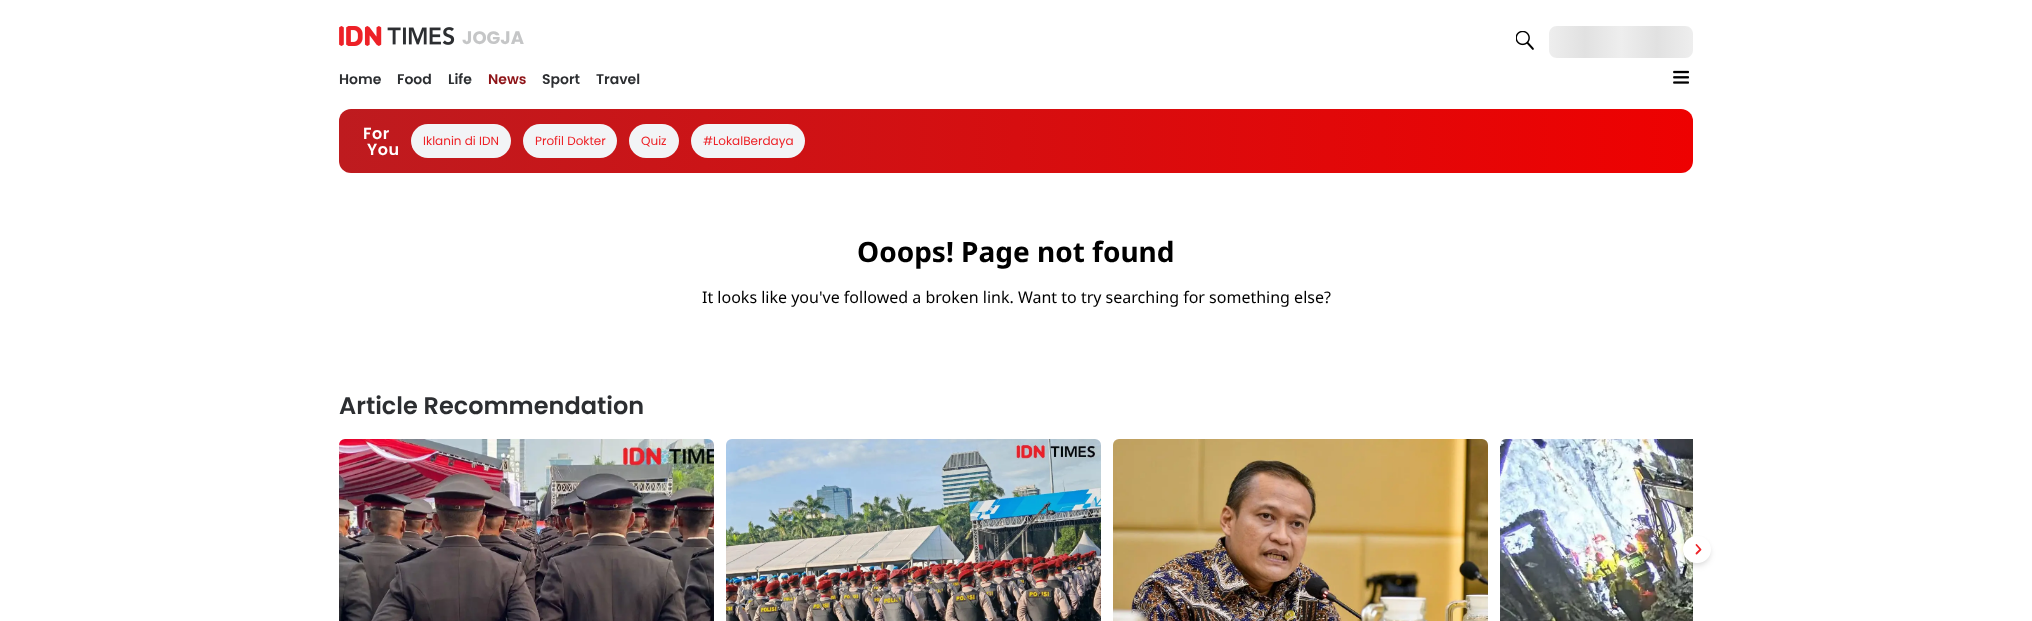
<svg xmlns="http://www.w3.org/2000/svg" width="2032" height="621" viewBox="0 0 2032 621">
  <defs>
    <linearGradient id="g1" gradientUnits="userSpaceOnUse" x1="1549" y1="42" x2="1621" y2="42"><stop offset="0" stop-color="#eeeeee"/><stop offset="0.5" stop-color="#e1e1e1"/><stop offset="1" stop-color="#eeeeee"/></linearGradient>
    <linearGradient id="g2" gradientUnits="userSpaceOnUse" x1="1621" y1="42" x2="1693" y2="42"><stop offset="0" stop-color="#eeeeee"/><stop offset="0.5" stop-color="#e1e1e1"/><stop offset="1" stop-color="#eeeeee"/></linearGradient>
    <linearGradient id="g3" gradientUnits="userSpaceOnUse" x1="339" y1="141" x2="1693" y2="141"><stop offset="0" stop-color="#be1b1f"/><stop offset="1" stop-color="#ee0101"/></linearGradient>
    <filter id="blur1" x="-50%" y="-200%" width="200%" height="500%"><feGaussianBlur stdDeviation="2"/></filter>
    <filter id="blur2" x="-50%" y="-200%" width="200%" height="500%"><feGaussianBlur stdDeviation="3"/></filter>
  </defs>
  <rect width="100%" height="100%" fill="#ffffff"/>
  <image x="339" y="26" width="116" height="20" href="img1.png"/>
  <text x="462" y="44" font-family="Poppins" font-size="18" font-weight="bold" fill="#c5c6c7">JOGJA</text>
  <image x="1516" y="31" width="18" height="19" href="img2.png"/>
  <path d="M1557 26H1621V58H1557C1552.5 58 1549 54.5 1549 50V34C1549 29.5 1552.5 26 1557 26Z" fill="url(#g1)"/>
  <path d="M1621 26H1685C1689.5 26 1693 29.5 1693 34V50C1693 54.5 1689.5 58 1685 58H1621Z" fill="url(#g2)"/>
  <image x="1673" y="70" width="16" height="14" href="img3.png"/>
  <text x="339" y="84" font-family="Poppins" font-size="14" font-weight="600" fill="#2c2e31">Home</text>
  <text x="397" y="84" font-family="Poppins" font-size="14" font-weight="600" fill="#2c2e31">Food</text>
  <text x="448" y="84" font-family="Poppins" font-size="14" font-weight="600" fill="#2c2e31">Life</text>
  <text x="488" y="84" font-family="Poppins" font-size="14" font-weight="600" fill="#8e1317">News</text>
  <text x="542" y="84" font-family="Poppins" font-size="14" font-weight="600" fill="#2c2e31">Sport</text>
  <text x="596" y="84" font-family="Poppins" font-size="14" font-weight="600" fill="#2c2e31">Travel</text>
  <rect x="339" y="109" width="1354" height="64" rx="12" fill="url(#g3)"/>
  <text x="363" y="139" font-family="Poppins" font-size="16" font-weight="600" letter-spacing="0.5" fill="#ffffff">For</text>
  <text x="367" y="155" font-family="Poppins" font-size="16" font-weight="600" letter-spacing="0.5" fill="#ffffff">You</text>
  <rect x="411" y="124" width="100" height="34" rx="17" fill="#f2f4f6"/>
  <text x="423" y="145" font-family="Poppins" font-size="12" fill="#ed2227">Iklanin di IDN</text>
  <rect x="523" y="124" width="94" height="34" rx="17" fill="#f2f4f6"/>
  <text x="535" y="145" font-family="Poppins" font-size="12" fill="#ed2227">Profil Dokter</text>
  <rect x="629" y="124" width="50" height="34" rx="17" fill="#f2f4f6"/>
  <text x="641" y="145" font-family="Poppins" font-size="12" fill="#ed2227">Quiz</text>
  <rect x="691" y="124" width="114" height="34" rx="17" fill="#f2f4f6"/>
  <text x="703" y="145" font-family="Poppins" font-size="12" fill="#ed2227">#LokalBerdaya</text>
  <text x="857" y="262" font-family="Noto Sans" font-size="28" font-weight="bold" fill="#000000">Ooops! Page not found</text>
  <text x="702" y="303" font-family="Noto Sans" font-size="16" fill="#000000">It looks like you've followed a broken link. Want to try searching for something else?</text>
  <text x="339" y="414" font-family="Poppins" font-size="24" font-weight="600" fill="#2c2e31">Article Recommendation</text>
  <image x="339" y="439" width="375" height="182" href="img4.png"/>
  <image x="726" y="439" width="375" height="182" href="img5.png"/>
  <image x="1113" y="439" width="375" height="182" href="img6.png"/>
  <image x="1500" y="439" width="193" height="182" href="img7.png"/>
  <rect x="1684" y="539" width="26" height="25" rx="12.5" fill="#000000" fill-opacity="0.06" filter="url(#blur1)"/>
  <rect x="1684" y="541" width="26" height="25" rx="12.5" fill="#000000" fill-opacity="0.1" filter="url(#blur2)"/>
  <rect x="1683" y="536" width="28" height="27" rx="13.5" fill="#ffffff"/>
  <path d="M1696.5 545L1700.5 549.5L1696.5 553.5" fill="none" stroke="#ed2227" stroke-width="1.8" stroke-linecap="round" stroke-linejoin="round"/>
</svg>
